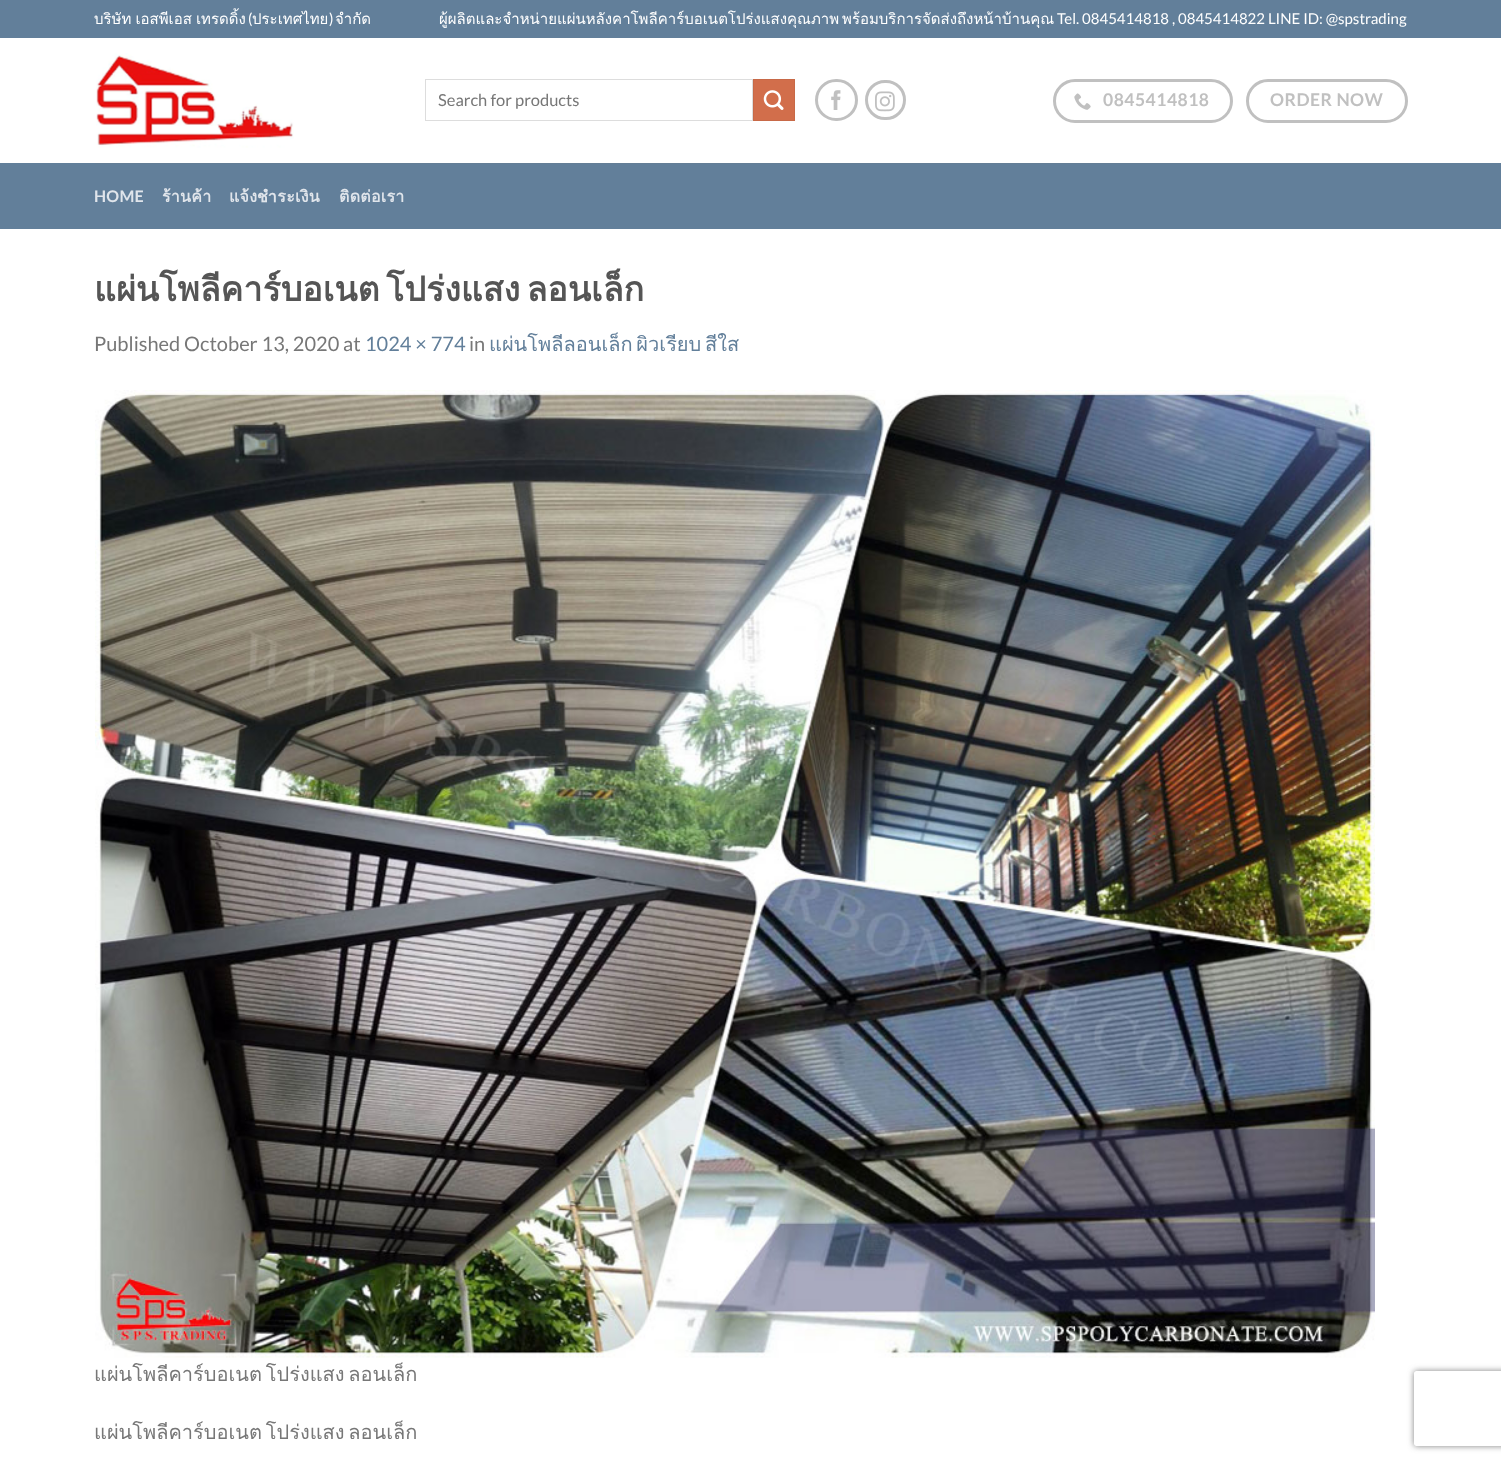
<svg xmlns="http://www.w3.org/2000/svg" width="1501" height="1463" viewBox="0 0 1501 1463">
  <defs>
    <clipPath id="clip1"><path d="M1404 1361H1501V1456H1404ZM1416.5 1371H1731.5C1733 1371 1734 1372 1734 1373.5V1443.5C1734 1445 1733 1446 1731.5 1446H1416.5C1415 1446 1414 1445 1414 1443.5V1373.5C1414 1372 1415 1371 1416.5 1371Z" clip-rule="evenodd"/></clipPath>
    <filter id="blur1" x="-50%" y="-200%" width="200%" height="500%"><feGaussianBlur stdDeviation="3"/></filter>
  </defs>
  <rect width="100%" height="100%" fill="#ffffff"/>
  <rect x="0" y="0" width="1501" height="38" fill="#627f9a"/>
  <text x="94" y="24" word-spacing="-1" font-family="Loma" font-size="15" fill="#ffffff">บริษัท เอสพีเอส เทรดดิ้ง</text>
  <text x="248" y="24" font-family="Lato" font-size="15" fill="#ffffff">(</text>
  <text x="252" y="24" font-family="Loma" font-size="15" fill="#ffffff">ประเทศไทย</text>
  <text x="329" y="24" font-family="Lato" font-size="15" fill="#ffffff">)</text>
  <text x="335" y="24" font-family="Loma" font-size="15" fill="#ffffff">จำกัด</text>
  <text x="439" y="24" font-family="Loma" font-size="15" fill="#ffffff">ผู้ผลิตและจำหน่ายแผ่นหลังคาโพลีคาร์บอเนตโปร่งแสงคุณภาพ</text>
  <text x="842" y="24" font-family="Loma" font-size="15" fill="#ffffff">พร้อมบริการจัดส่งถึงหน้าบ้านคุณ</text>
  <text x="1057" y="24" font-family="Lato" font-size="15" fill="#ffffff">Tel. 0845414818 , 0845414822 LINE ID: @spstrading</text>
  <image x="96" y="53" width="198" height="95" href="img1.png"/>
  <rect x="425.5" y="79.5" width="327" height="41" fill="none" stroke="#dddddd"/>
  <text x="438" y="106" font-family="Lato" font-size="16.5" fill="#777777">Search for products</text>
  <rect x="753.5" y="79.5" width="41" height="41" fill="#d26e4b" stroke="#c86947"/>
  <image x="763" y="90" width="21" height="20" href="img2.png"/>
  <rect x="816.5" y="80.5" width="40" height="39" rx="19.5" fill="none" stroke="#c0c0c0" stroke-width="3"/>
  <image x="831" y="90" width="10" height="20" href="img3.png"/>
  <rect x="866.5" y="81.5" width="38" height="37" rx="18.5" fill="none" stroke="#c0c0c0" stroke-width="3"/>
  <image x="875" y="91" width="20" height="21" href="img4.png"/>
  <rect x="1054.5" y="80.5" width="177" height="41" rx="20.5" fill="none" stroke="#c0c0c0" stroke-width="3"/>
  <image x="1074" y="93" width="17" height="17" href="img5.png"/>
  <text x="1103" y="106" font-family="Lato" font-size="17.5" font-weight="bold" letter-spacing="0.5" fill="#c0c0c0">0845414818</text>
  <rect x="1247.5" y="80.5" width="159" height="41" rx="20.5" fill="none" stroke="#c0c0c0" stroke-width="3"/>
  <text x="1270" y="106" font-family="Lato" font-size="17.5" font-weight="bold" letter-spacing="0.5" fill="#c0c0c0">ORDER NOW</text>
  <rect x="0" y="163" width="1501" height="66" fill="#627f9a"/>
  <rect x="95" y="163" width="1313" height="1" fill="#647e96"/>
  <text x="94" y="202" font-family="Lato" font-size="16" font-weight="bold" letter-spacing="0.25" fill="#e0e5eb">HOME</text>
  <text x="162" y="202" font-family="Loma" font-size="16" font-weight="bold" letter-spacing="0.25" fill="#e0e5eb">ร้านค้า</text>
  <text x="229" y="202" font-family="Loma" font-size="16" font-weight="bold" letter-spacing="0.25" fill="#e0e5eb">แจ้งชำระเงิน</text>
  <text x="339" y="202" font-family="Loma" font-size="16" font-weight="bold" letter-spacing="0.25" fill="#e0e5eb">ติดต่อเรา</text>
  <text x="94" y="301" word-spacing="-5" font-family="Loma" font-size="34" font-weight="bold" fill="#555555">แผ่นโพลีคาร์บอเนต โปร่งแสง ลอนเล็ก</text>
  <text x="94" y="351" font-family="Lato" font-size="20" fill="#777777">Published October 13, 2020 at</text>
  <text x="365" y="351" font-family="Lato" font-size="20" fill="#627f9a">1024 × 774</text>
  <text x="469" y="351" font-family="Lato" font-size="20" fill="#777777">in</text>
  <text x="489" y="351" word-spacing="-3" font-family="Loma" font-size="20" fill="#627f9a">แผ่นโพลีลอนเล็ก ผิวเรียบ สีใส</text>
  <image x="95" y="390" width="1280" height="968" href="img6.png"/>
  <text x="94" y="1381" word-spacing="-3" font-family="Loma" font-size="20" fill="#777777">แผ่นโพลีคาร์บอเนต โปร่งแสง ลอนเล็ก</text>
  <text x="94" y="1439" word-spacing="-3" font-family="Loma" font-size="20" fill="#777777">แผ่นโพลีคาร์บอเนต โปร่งแสง ลอนเล็ก</text>
  <g clip-path="url(#clip1)">
    <rect x="1414" y="1371" width="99" height="75" rx="2.5" fill="#808080" filter="url(#blur1)"/>
  </g>
</svg>
